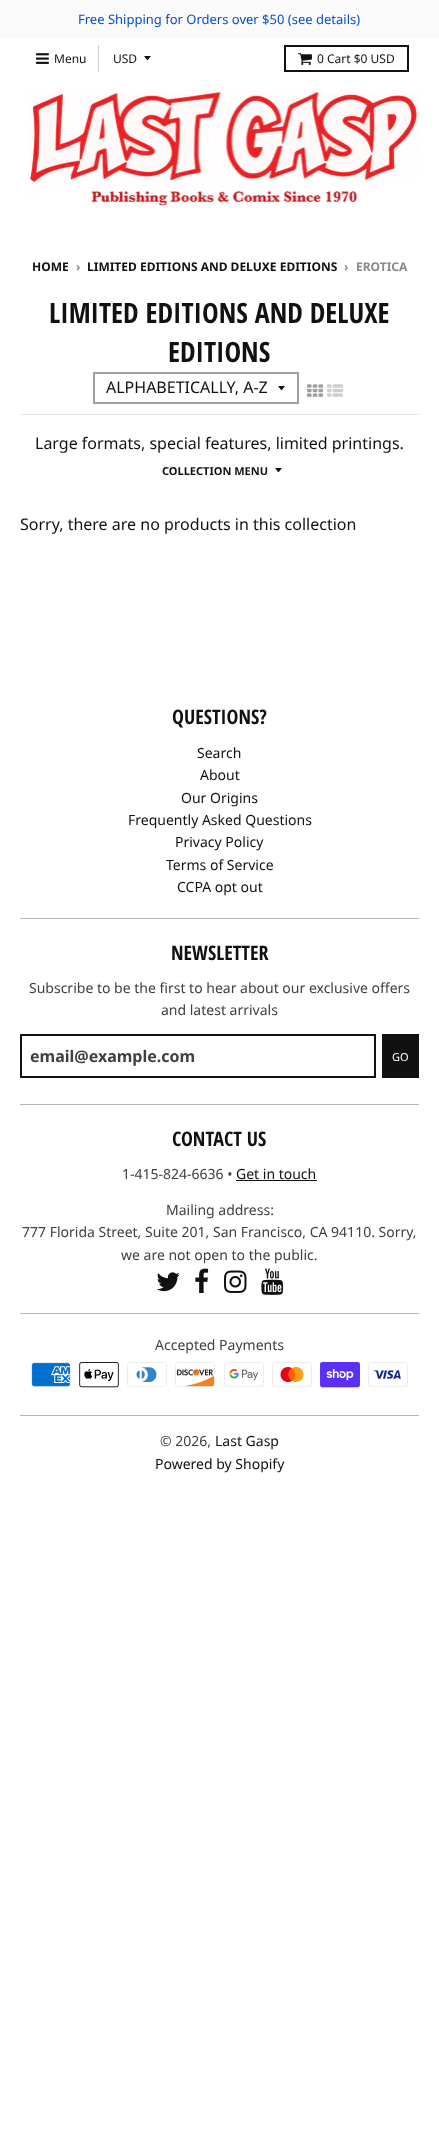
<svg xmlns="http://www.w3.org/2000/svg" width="439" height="2133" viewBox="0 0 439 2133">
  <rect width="100%" height="100%" fill="#ffffff"/>
  <rect x="0" y="0" width="439" height="39" fill="#fafafa"/>
  <text x="78" y="24" font-family="Noto Sans" font-size="13" fill="#044fcc">Free Shipping for Orders over $50 (see details)</text>
  <rect x="98" y="45" width="1" height="27" fill="#cfcfcf"/>
  <image x="36" y="53" width="13" height="11" href="img1.png"/>
  <text x="54" y="63" font-family="Noto Sans" font-size="12" fill="#111111">Menu</text>
  <path d="M144 56C148.5 61.5 146.5 61.5 151 56Z" fill="#111111"/>
  <text x="113" y="63" font-family="Noto Sans" font-size="12" fill="#111111">USD</text>
  <rect x="285" y="46" width="123" height="25" fill="none" stroke="#111111" stroke-width="2"/>
  <image x="298" y="53" width="14" height="12" href="img2.png"/>
  <text x="317" y="63" font-family="Noto Sans" font-size="12" fill="#111111">0 Cart $0 USD</text>
  <image x="28" y="90" width="391" height="120" href="img3.png"/>
  <text x="32" y="271" font-family="Noto Sans" font-size="12" font-weight="bold" fill="#111111">HOME</text>
  <text x="76" y="271" font-family="Noto Sans" font-size="12" font-weight="bold" fill="#888888">›</text>
  <text x="87" y="271" font-family="Noto Sans" font-size="12" font-weight="bold" fill="#111111">LIMITED EDITIONS AND DELUXE EDITIONS</text>
  <text x="344" y="271" font-family="Noto Sans" font-size="12" font-weight="bold" fill="#888888">›</text>
  <text x="356" y="271" font-family="Noto Sans" font-size="12" font-weight="bold" fill="#888888">EROTICA</text>
  <rect x="20" y="414" width="399" height="1" fill="#e7e7e7"/>
  <text x="49" y="323" font-family="Open Sans Condensed" font-size="28" font-weight="bold" fill="#111111">LIMITED EDITIONS AND DELUXE</text>
  <text x="168" y="362" font-family="Open Sans Condensed" font-size="28" font-weight="bold" fill="#111111">EDITIONS</text>
  <path d="M278 386C282.5 391.5 280.5 391.5 285 386Z" fill="#111111"/>
  <rect x="94" y="373" width="204" height="30" fill="none" stroke="#9f9f9f" stroke-width="2"/>
  <text x="106" y="393" font-family="Noto Sans" font-size="16" fill="#111111">ALPHABETICALLY, A-Z</text>
  <image x="307" y="384" width="16" height="13" href="img4.png"/>
  <image x="327" y="384" width="16" height="13" href="img5.png"/>
  <text x="35" y="449" font-family="Noto Sans" font-size="16" fill="#111111">Large formats, special features, limited printings.</text>
  <text x="162" y="475" font-family="Noto Sans" font-size="11" font-weight="bold" fill="#111111">COLLECTION MENU</text>
  <path d="M275 468C279.5 473.5 277.5 473.5 282 468Z" fill="#111111"/>
  <text x="20" y="530" font-family="Noto Sans" font-size="16" fill="#111111">Sorry, there are no products in this collection</text>
  <text x="172" y="724" font-family="Open Sans Condensed" font-size="20" font-weight="bold" fill="#111111">QUESTIONS?</text>
  <rect x="20" y="918" width="399" height="1" fill="#b7b7b7"/>
  <text x="197" y="758" font-family="Noto Sans" font-size="14" fill="#111111">Search</text>
  <text x="200" y="780" font-family="Noto Sans" font-size="14" fill="#111111">About</text>
  <text x="181" y="803" font-family="Noto Sans" font-size="14" fill="#111111">Our Origins</text>
  <text x="128" y="825" font-family="Noto Sans" font-size="14" fill="#111111">Frequently Asked Questions</text>
  <text x="175" y="847" font-family="Noto Sans" font-size="14" fill="#111111">Privacy Policy</text>
  <text x="166" y="870" font-family="Noto Sans" font-size="14" fill="#111111">Terms of Service</text>
  <text x="177" y="892" font-family="Noto Sans" font-size="14" fill="#111111">CCPA opt out</text>
  <text x="171" y="960" font-family="Open Sans Condensed" font-size="20" font-weight="bold" fill="#111111">NEWSLETTER</text>
  <text x="29" y="993" font-family="Noto Sans" font-size="14" fill="#404040">Subscribe to be the first to hear about our exclusive offers</text>
  <text x="161" y="1015" font-family="Noto Sans" font-size="14" fill="#404040">and latest arrivals</text>
  <rect x="20" y="1104" width="399" height="1" fill="#b7b7b7"/>
  <rect x="21" y="1035" width="354" height="42" fill="none" stroke="#111111" stroke-width="2"/>
  <text x="30" y="1062" font-family="Noto Sans" font-size="16" font-weight="bold" fill="#404040">email@example.com</text>
  <rect x="382" y="1034" width="37" height="44" fill="#111111"/>
  <text x="392" y="1061" font-family="Noto Sans" font-size="11" fill="#ffffff">GO</text>
  <text x="172" y="1146" font-family="Open Sans Condensed" font-size="20" font-weight="bold" fill="#111111">CONTACT US</text>
  <text x="122" y="1179" font-family="Noto Sans" font-size="14" fill="#404040">1-415-824-6636 •</text>
  <text x="236" y="1179" font-family="Noto Sans" font-size="14" fill="#111111">Get in touch</text>
  <rect x="236" y="1180" width="81" height="1" fill="#111111"/>
  <text x="166" y="1215" font-family="Noto Sans" font-size="14" fill="#404040">Mailing address:</text>
  <text x="22" y="1237" font-family="Noto Sans" font-size="14" fill="#404040">777 Florida Street, Suite 201, San Francisco, CA 94110. Sorry,</text>
  <text x="121" y="1260" font-family="Noto Sans" font-size="14" fill="#404040">we are not open to the public.</text>
  <image x="156" y="1272" width="24" height="20" href="img6.png"/>
  <image x="195" y="1268" width="14" height="25" href="img7.png"/>
  <image x="224" y="1270" width="23" height="23" href="img8.png"/>
  <image x="261" y="1268" width="23" height="27" href="img9.png"/>
  <rect x="20" y="1313" width="399" height="1" fill="#b7b7b7"/>
  <text x="155" y="1350" font-family="Noto Sans" font-size="14" fill="#404040">Accepted Payments</text>
  <rect x="20" y="1415" width="399" height="1" fill="#b7b7b7"/>
  <image x="31" y="1362" width="40" height="25" href="img10.png"/>
  <image x="79" y="1362" width="40" height="26" href="img11.png"/>
  <image x="127" y="1362" width="40" height="25" href="img12.png"/>
  <image x="175" y="1362" width="40" height="25" href="img13.png"/>
  <image x="224" y="1362" width="40" height="25" href="img14.png"/>
  <image x="272" y="1362" width="40" height="25" href="img15.png"/>
  <image x="320" y="1362" width="40" height="26" href="img16.png"/>
  <image x="368" y="1362" width="40" height="25" href="img17.png"/>
  <text x="160" y="1446" font-family="Noto Sans" font-size="14" fill="#404040">© 2026,</text>
  <text x="215" y="1446" font-family="Noto Sans" font-size="14" fill="#111111">Last Gasp</text>
  <text x="155" y="1469" font-family="Noto Sans" font-size="14" fill="#111111">Powered by Shopify</text>
</svg>
